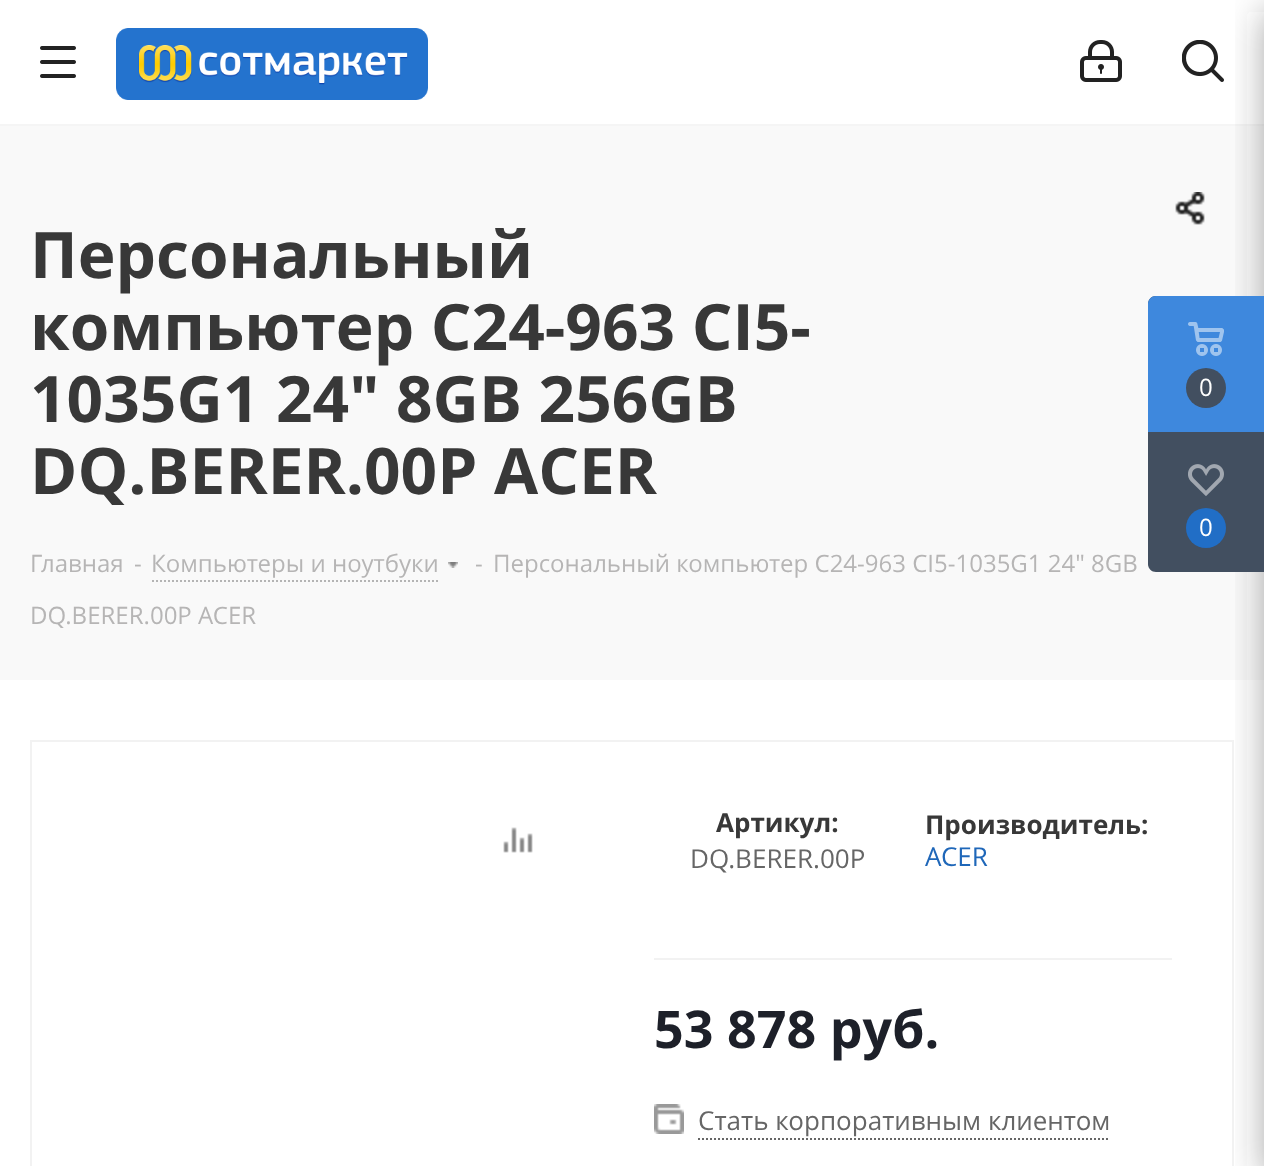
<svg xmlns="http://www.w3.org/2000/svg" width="1264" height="1166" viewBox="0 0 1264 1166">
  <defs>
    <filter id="blur1" x="-50%" y="-200%" width="200%" height="500%"><feGaussianBlur stdDeviation="18"/></filter>
  </defs>
  <rect width="100%" height="100%" fill="#ffffff"/>
  <rect x="0" y="124" width="1264" height="2" fill="#f5f5f5"/>
  <image x="40" y="46" width="36" height="32" href="img1.png"/>
  <image x="116" y="28" width="312" height="72" href="img2.png"/>
  <image x="1080" y="40" width="42" height="42" href="img3.png"/>
  <image x="1182" y="40" width="42" height="42" href="img4.png"/>
  <rect x="0" y="126" width="1264" height="554" fill="#f9f9f9"/>
  <image x="1175" y="192" width="30" height="33" href="img5.png"/>
  <text x="30" y="278" font-family="Open Sans" font-size="64" font-weight="bold" fill="#383838">Персональный</text>
  <text x="30" y="350" font-family="Open Sans" font-size="64" font-weight="bold" fill="#383838">компьютер C24-963 CI5-</text>
  <text x="30" y="422" font-family="Open Sans" font-size="64" font-weight="bold" fill="#383838">1035G1 24" 8GB 256GB</text>
  <text x="30" y="494" font-family="Open Sans" font-size="64" font-weight="bold" fill="#383838">DQ.BERER.00P ACER</text>
  <text x="30" y="572" font-family="Open Sans" font-size="24" fill="#b6b5b5">Главная</text>
  <text x="134" y="572" font-family="Open Sans" font-size="24" fill="#b6b5b5">-</text>
  <text x="151" y="572" font-family="Open Sans" font-size="24" fill="#b6b5b5">Компьютеры и ноутбуки</text>
  <path d="M152 581H440" fill="none" stroke="#b4b4b4" stroke-width="2" stroke-dasharray="2 2"/>
  <image x="448" y="562" width="10" height="6" href="img6.png"/>
  <text x="475" y="572" font-family="Open Sans" font-size="24" fill="#b6b5b5">-</text>
  <text x="493" y="572" font-family="Open Sans" font-size="24" fill="#b6b5b5">Персональный компьютер C24-963 CI5-1035G1 24" 8GB</text>
  <text x="30" y="624" font-family="Open Sans" font-size="24" fill="#b6b5b5">DQ.BERER.00P ACER</text>
  <rect x="31" y="741" width="1202" height="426" fill="none" stroke="#f2f2f2" stroke-width="2"/>
  <image x="503" y="827" width="30" height="26" href="img7.png"/>
  <rect x="654" y="958" width="518" height="2" fill="#f2f2f2"/>
  <text x="716" y="832" font-family="Open Sans" font-size="26" font-weight="bold" fill="#383838">Артикул:</text>
  <text x="690" y="868" font-family="Open Sans" font-size="26" fill="#666666">DQ.BERER.00P</text>
  <text x="925" y="834" font-family="Open Sans" font-size="26" font-weight="bold" fill="#383838">Производитель:</text>
  <text x="925" y="866" font-family="Open Sans" font-size="26" fill="#1f67b9">ACER</text>
  <text x="654" y="1048" font-family="Open Sans" font-size="52" font-weight="bold" fill="#1d2029">53 878 руб.</text>
  <image x="654" y="1104" width="30" height="30" href="img8.png"/>
  <text x="698" y="1130" font-family="Open Sans" font-size="26" fill="#666666">Стать корпоративным клиентом</text>
  <path d="M698 1139H1110" fill="none" stroke="#666666" stroke-width="2" stroke-dasharray="2 2"/>
  <rect x="1264" y="12" width="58" height="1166" rx="4" fill="#2c2c2c" fill-opacity="0.4" filter="url(#blur1)"/>
  <path d="M1156 296H1264V572H1156C1151.5 572 1148 568.5 1148 564V304C1148 299.5 1151.5 296 1156 296Z" fill="#424f60"/>
  <path d="M1156 296H1264V432H1148V304C1148 299.5 1151.5 296 1156 296Z" fill="#3e88dd"/>
  <image x="1188" y="322" width="36" height="34" href="img9.png"/>
  <circle cx="1206" cy="388" r="20" fill="#424f60"/>
  <text x="1199" y="396" font-family="Open Sans" font-size="24" fill="#ffffff">0</text>
  <image x="1188" y="464" width="36" height="32" href="img10.png"/>
  <circle cx="1206" cy="528" r="20" fill="#216ec6"/>
  <text x="1199" y="536" font-family="Open Sans" font-size="24" fill="#ffffff">0</text>
</svg>
